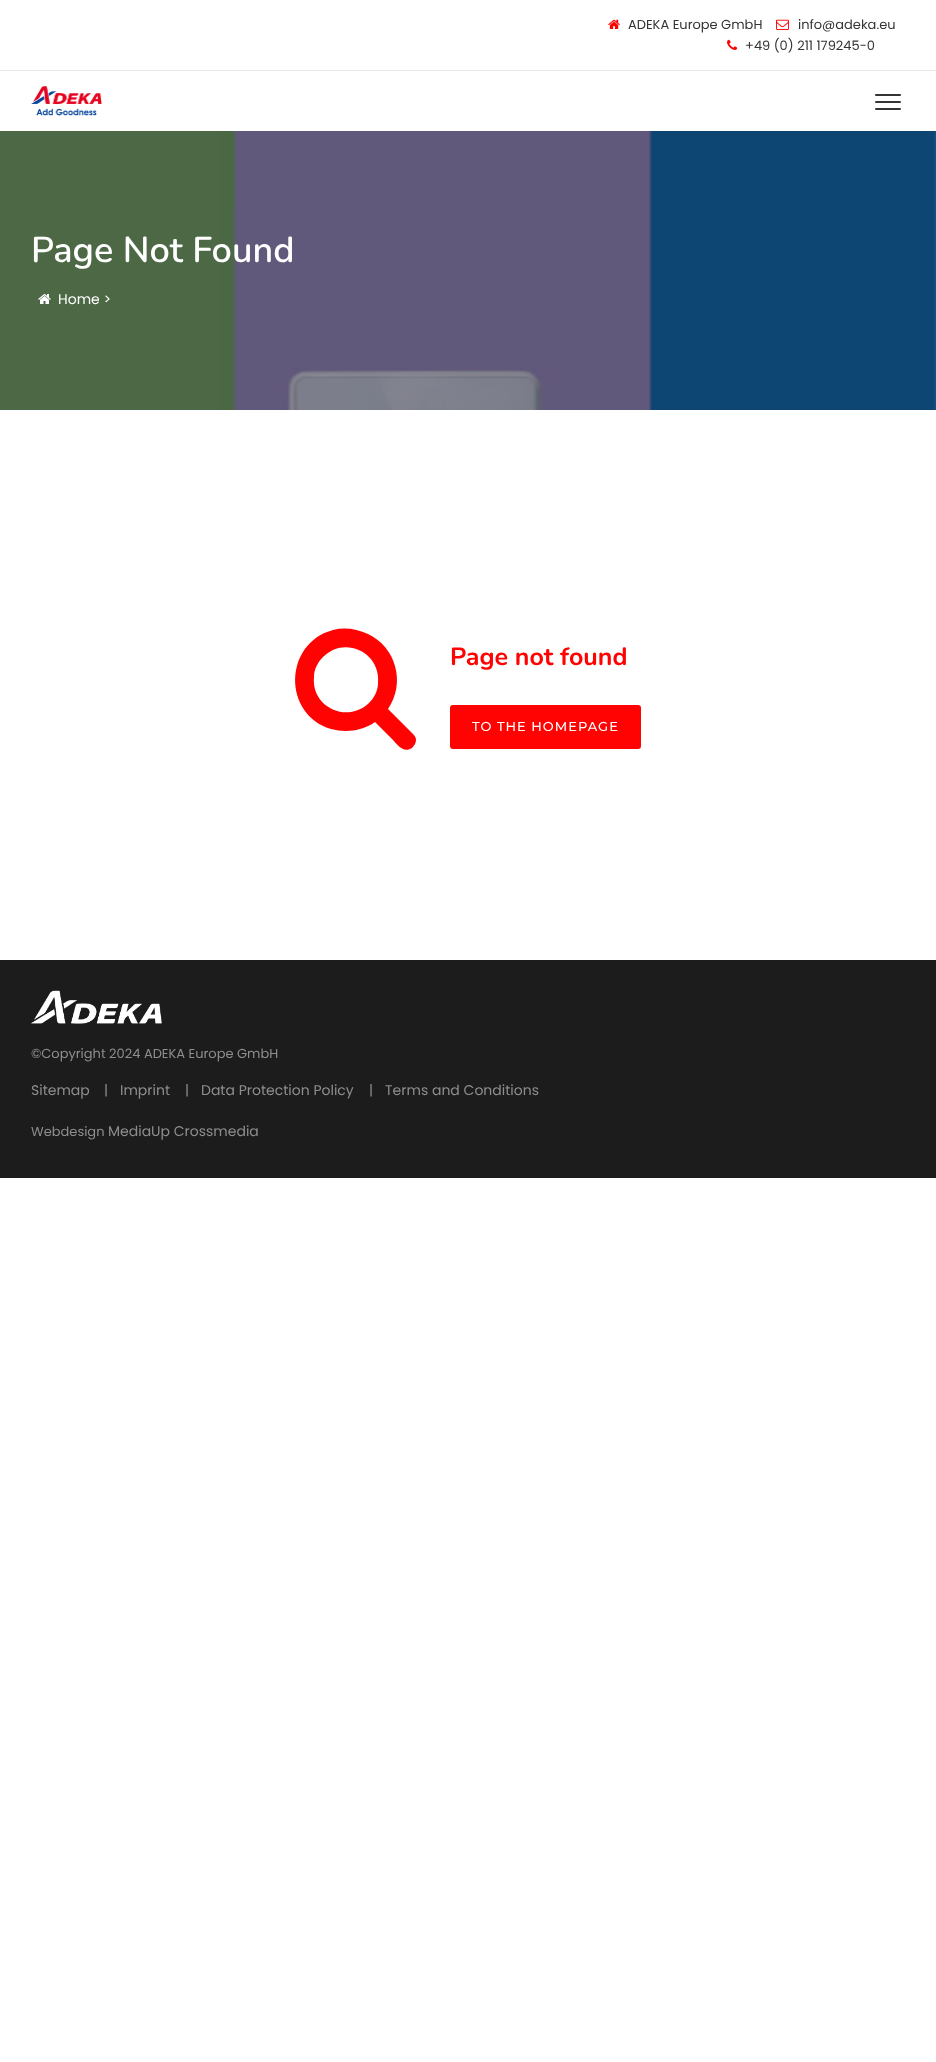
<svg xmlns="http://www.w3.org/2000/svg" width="936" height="2062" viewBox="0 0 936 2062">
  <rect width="100%" height="100%" fill="#ffffff"/>
  <rect x="0" y="70" width="936" height="1" fill="#e6e6e6"/>
  <image x="608" y="19" width="12" height="10" href="img1.png"/>
  <text x="628" y="29" font-family="Poppins" font-size="13" fill="#343434">ADEKA Europe GmbH</text>
  <image x="776" y="19" width="13" height="11" href="img2.png"/>
  <text x="798" y="29" font-family="Poppins" font-size="13" fill="#343434">info@adeka.eu</text>
  <image x="727" y="39" width="11" height="11" href="img3.png"/>
  <text x="745" y="50" font-family="Poppins" font-size="13" fill="#343434">+49 (0) 211 179245-0</text>
  <image x="31" y="86" width="71" height="30" href="img4.png"/>
  <rect x="875" y="94" width="26" height="2" rx="1" fill="#343434"/>
  <rect x="875" y="101" width="26" height="2" rx="1" fill="#343434"/>
  <rect x="875" y="108" width="26" height="2" rx="1" fill="#343434"/>
  <image x="0" y="131" width="936" height="279" href="img5.png"/>
  <text x="31" y="262" font-family="Nunito" font-size="36" font-weight="200" fill="#ffffff">Page Not Found</text>
  <image x="38" y="294" width="13" height="10" href="img6.png"/>
  <text x="58" y="304" font-family="Poppins" font-size="14" fill="#ffffff">Home &gt;</text>
  <path d="M369 703C374 698 378 691 378 683C381 653 345 635 323 657C318 662 314 669 314 677C311 707 347 724 369 703ZM416 740C416 743 414 746 412 748C403 754 396 743 392 739L375 722C362 731 346 733 331 729C282 714 284 643 333 630C345 627 357 629 368 634C396 647 406 683 388 709L413 734C415 736 416 738 416 740Z" fill="#ff0303"/>
  <text x="450" y="665" font-family="'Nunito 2'" font-size="25" font-weight="200" fill="#ff0303">Page not found</text>
  <rect x="451" y="706" width="189" height="42" rx="2" fill="#ff0303" stroke="#ff0303" stroke-width="2"/>
  <text x="472" y="731" font-family="Montserrat" font-size="13" font-weight="500" letter-spacing="1" fill="#ffffff">TO THE HOMEPAGE</text>
  <rect x="0" y="960" width="936" height="218" fill="#1c1c1c"/>
  <image x="31" y="990" width="131" height="34" href="img7.png"/>
  <text x="31" y="1058" font-family="Poppins" font-size="13" fill="#8e8e8e">©Copyright 2024 ADEKA Europe GmbH</text>
  <text x="31" y="1095" font-family="Poppins" font-size="14" fill="#8e8e8e">Sitemap</text>
  <text x="104" y="1095" font-family="Poppins" font-size="14" fill="#8e8e8e">|</text>
  <text x="120" y="1095" font-family="Poppins" font-size="14" fill="#8e8e8e">Imprint</text>
  <text x="185" y="1095" font-family="Poppins" font-size="14" fill="#8e8e8e">|</text>
  <text x="201" y="1095" font-family="Poppins" font-size="14" fill="#8e8e8e">Data Protection Policy</text>
  <text x="369" y="1095" font-family="Poppins" font-size="14" fill="#8e8e8e">|</text>
  <text x="385" y="1095" font-family="Poppins" font-size="14" fill="#8e8e8e">Terms and Conditions</text>
  <text x="31" y="1136" font-family="Poppins" font-size="13" fill="#8e8e8e">Webdesign</text>
  <text x="108" y="1136" font-family="Poppins" font-size="14" fill="#8e8e8e">MediaUp Crossmedia</text>
</svg>
